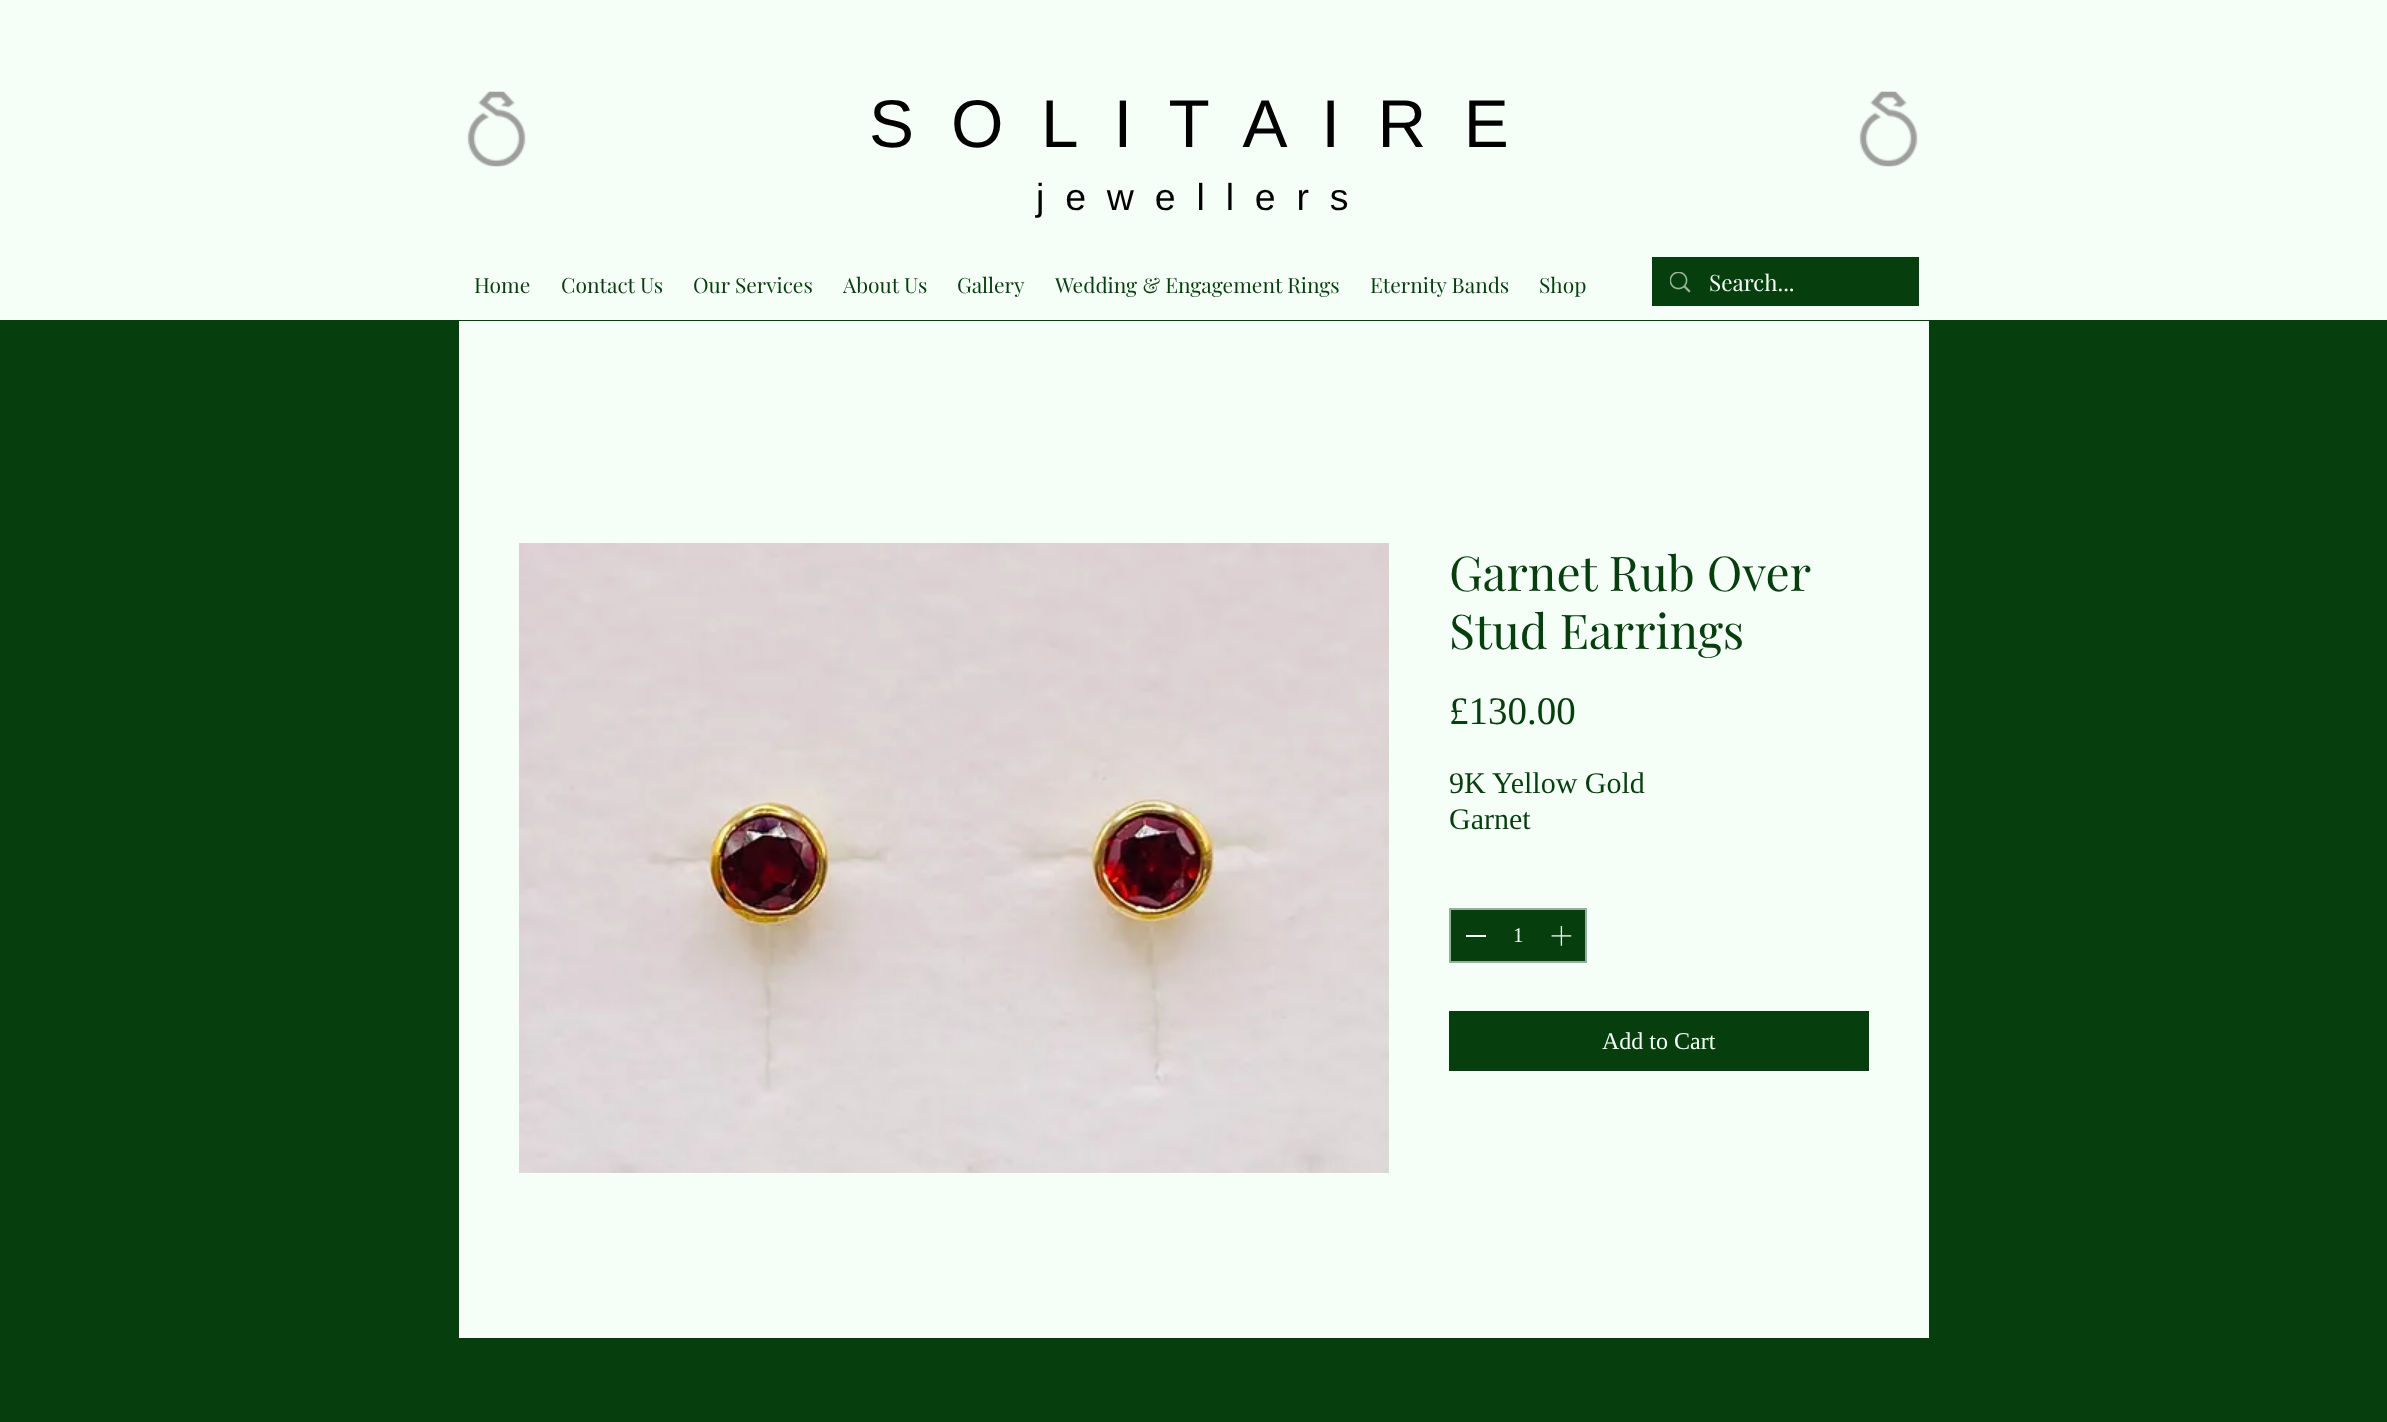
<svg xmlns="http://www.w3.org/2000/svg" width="2387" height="1422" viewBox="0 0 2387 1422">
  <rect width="100%" height="100%" fill="#063f0d"/>
  <rect x="0" y="0" width="2387" height="320" fill="#f5fff7"/>
  <image x="467" y="91" width="59" height="76" href="img1.png"/>
  <image x="1859" y="91" width="59" height="76" href="img2.png"/>
  <text x="869" y="147" font-family="Liberation Sans" font-size="67.5" fill="#000000">S</text>
  <text x="951" y="147" font-family="Liberation Sans" font-size="67.5" fill="#000000" xml:space="preserve">O  L  I  T  A  I  R  E</text>
  <text x="1036" y="210" font-family="Liberation Sans" font-size="37.5" fill="#000000" xml:space="preserve">j  e  w  e  l  l  e  r  s</text>
  <text x="474" y="293" font-family="Playfair Display" font-size="21" fill="#063f0d">Home</text>
  <text x="561" y="293" font-family="Playfair Display" font-size="21" fill="#063f0d">Contact Us</text>
  <text x="693" y="293" font-family="Playfair Display" font-size="21" fill="#063f0d">Our Services</text>
  <text x="843" y="293" font-family="Playfair Display" font-size="21" fill="#063f0d">About Us</text>
  <text x="957" y="293" font-family="Playfair Display" font-size="21" fill="#063f0d">Gallery</text>
  <text x="1055" y="293" font-family="Playfair Display" font-size="21" fill="#063f0d">Wedding &amp; Engagement Rings</text>
  <text x="1370" y="293" font-family="Playfair Display" font-size="21" fill="#063f0d">Eternity Bands</text>
  <text x="1539" y="293" font-family="Playfair Display" font-size="21" fill="#063f0d">Shop</text>
  <rect x="1652" y="257" width="267" height="49" fill="#063f0d"/>
  <image x="1670" y="272" width="21" height="21" href="img3.png"/>
  <text x="1709" y="291" font-family="Playfair Display" font-size="22.5" fill="#f5fff7">Search...</text>
  <rect x="459" y="321" width="1470" height="1017" fill="#f5fff7"/>
  <image x="519" y="543" width="870" height="630" href="img4.png"/>
  <text x="1449" y="591" font-family="Playfair Display" font-size="48" fill="#063f0d">Garnet Rub Over</text>
  <text x="1449" y="649" font-family="Playfair Display" font-size="48" fill="#063f0d">Stud Earrings</text>
  <text x="1449" y="724" font-family="Liberation Serif" font-size="39" fill="#063f0d">£130.00</text>
  <text x="1449" y="793" font-family="Liberation Serif" font-size="30" fill="#063f0d">9K Yellow Gold</text>
  <text x="1449" y="829" font-family="Liberation Serif" font-size="30" fill="#063f0d">Garnet</text>
  <rect x="1450" y="909" width="136" height="53" fill="#063f0d" stroke="#95b299" stroke-width="2"/>
  <rect x="1466" y="935" width="20" height="2" fill="#f5fff7"/>
  <text x="1513" y="942" font-family="Liberation Serif" font-size="21" fill="#f5fff7">1</text>
  <image x="1551" y="926" width="21" height="20" href="img5.png"/>
  <rect x="1449" y="1011" width="420" height="60" fill="#063f0d"/>
  <text x="1602" y="1049" font-family="Liberation Serif" font-size="24" fill="#f5fff7">Add to Cart</text>
</svg>
